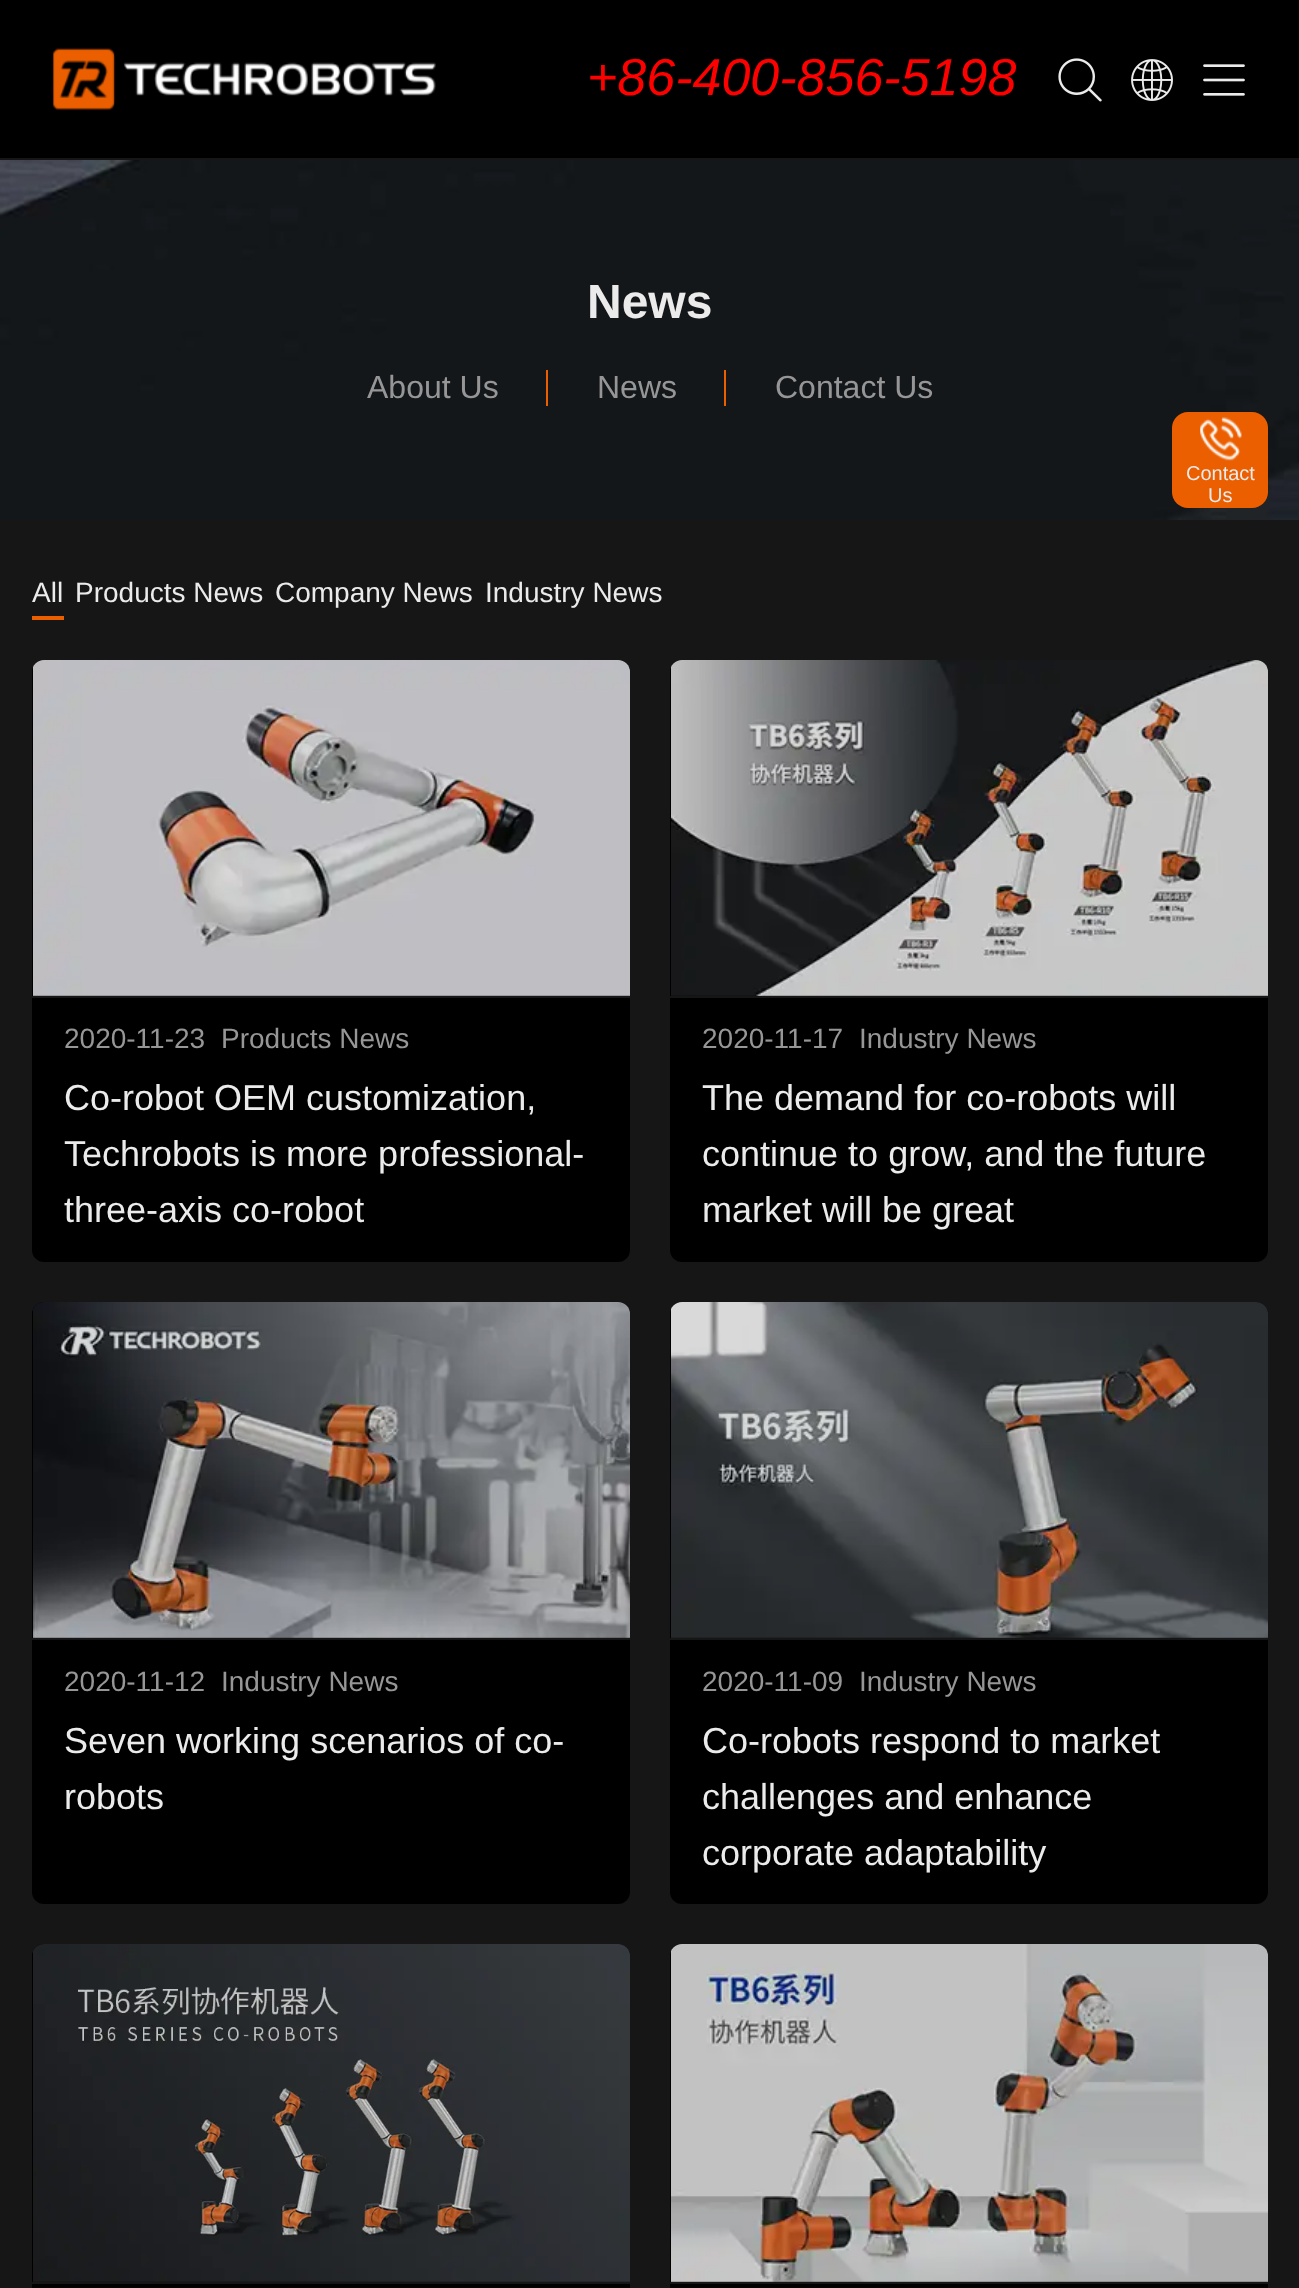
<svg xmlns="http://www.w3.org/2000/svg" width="1299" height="2288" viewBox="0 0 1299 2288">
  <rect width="100%" height="100%" fill="#161616"/>
  <rect x="0" y="0" width="1299" height="158" fill="#000000"/>
  <image x="52" y="48" width="384" height="63" href="img1.png"/>
  <text x="587" y="95" font-family="Liberation Sans" font-size="52" font-style="italic" fill="#ff0000">+86-400-856-5198</text>
  <image x="1058" y="58" width="44" height="44" href="img2.png"/>
  <image x="1131" y="59" width="42" height="42" href="img3.png"/>
  <image x="1203" y="64" width="42" height="32" href="img4.png"/>
  <image x="0" y="160" width="1299" height="360" href="img5.png"/>
  <text x="587" y="318" font-family="Liberation Sans" font-size="48" font-weight="bold" fill="#ebebeb">News</text>
  <rect x="546" y="370" width="2" height="36" fill="#eb5f00"/>
  <text x="367" y="398" font-family="Liberation Sans" font-size="32" fill="#969696">About Us</text>
  <rect x="724" y="370" width="2" height="36" fill="#eb5f00"/>
  <text x="597" y="398" font-family="Liberation Sans" font-size="32" fill="#969696">News</text>
  <text x="775" y="398" font-family="Liberation Sans" font-size="32" fill="#969696">Contact Us</text>
  <rect x="32" y="616" width="32" height="4" fill="#eb5f00"/>
  <text x="32" y="602" font-family="Liberation Sans" font-size="28" fill="#ebebeb">All</text>
  <text x="75" y="602" font-family="Liberation Sans" font-size="28" fill="#ebebeb">Products News</text>
  <text x="275" y="602" font-family="Liberation Sans" font-size="28" fill="#ebebeb">Company News</text>
  <text x="485" y="602" font-family="Liberation Sans" font-size="28" fill="#ebebeb">Industry News</text>
  <rect x="32" y="660" width="598" height="602" rx="12" fill="#000000"/>
  <image x="33" y="660" width="597" height="336" href="img6.png"/>
  <path d="M44 660H618C624.5 660 630 665.5 630 672V996H32V672C32 665.5 37.5 660 44 660Z" fill="#000000" fill-opacity="0.15"/>
  <rect x="32" y="996" width="598" height="2" fill="#161616"/>
  <text x="64" y="1048" font-family="Liberation Sans" font-size="28" fill="#969696">2020-11-23</text>
  <text x="221" y="1048" font-family="Liberation Sans" font-size="28" fill="#969696">Products News</text>
  <text x="64" y="1110" font-family="Liberation Sans" font-size="36" fill="#ebebeb">Co-robot OEM customization,</text>
  <text x="64" y="1166" font-family="Liberation Sans" font-size="36" fill="#ebebeb">Techrobots is more professional-</text>
  <text x="64" y="1222" font-family="Liberation Sans" font-size="36" fill="#ebebeb">three-axis co-robot</text>
  <rect x="670" y="660" width="598" height="602" rx="12" fill="#000000"/>
  <image x="671" y="660" width="597" height="336" href="img7.png"/>
  <path d="M682 660H1256C1262.5 660 1268 665.5 1268 672V996H670V672C670 665.5 675.5 660 682 660Z" fill="#000000" fill-opacity="0.15"/>
  <rect x="670" y="996" width="598" height="2" fill="#161616"/>
  <text x="702" y="1048" font-family="Liberation Sans" font-size="28" fill="#969696">2020-11-17</text>
  <text x="859" y="1048" font-family="Liberation Sans" font-size="28" fill="#969696">Industry News</text>
  <text x="702" y="1110" font-family="Liberation Sans" font-size="36" fill="#ebebeb">The demand for co-robots will</text>
  <text x="702" y="1166" font-family="Liberation Sans" font-size="36" fill="#ebebeb">continue to grow, and the future</text>
  <text x="702" y="1222" font-family="Liberation Sans" font-size="36" fill="#ebebeb">market will be great</text>
  <rect x="32" y="1302" width="598" height="602" rx="12" fill="#000000"/>
  <image x="33" y="1302" width="597" height="336" href="img8.png"/>
  <path d="M44 1302H618C624.5 1302 630 1307.5 630 1314V1638H32V1314C32 1307.5 37.5 1302 44 1302Z" fill="#000000" fill-opacity="0.15"/>
  <rect x="32" y="1638" width="598" height="2" fill="#161616"/>
  <text x="64" y="1691" font-family="Liberation Sans" font-size="28" fill="#969696">2020-11-12</text>
  <text x="221" y="1691" font-family="Liberation Sans" font-size="28" fill="#969696">Industry News</text>
  <text x="64" y="1753" font-family="Liberation Sans" font-size="36" fill="#ebebeb">Seven working scenarios of co-</text>
  <text x="64" y="1809" font-family="Liberation Sans" font-size="36" fill="#ebebeb">robots</text>
  <rect x="670" y="1302" width="598" height="602" rx="12" fill="#000000"/>
  <image x="671" y="1302" width="597" height="336" href="img9.png"/>
  <path d="M682 1302H1256C1262.5 1302 1268 1307.5 1268 1314V1638H670V1314C670 1307.5 675.5 1302 682 1302Z" fill="#000000" fill-opacity="0.15"/>
  <rect x="670" y="1638" width="598" height="2" fill="#161616"/>
  <text x="702" y="1691" font-family="Liberation Sans" font-size="28" fill="#969696">2020-11-09</text>
  <text x="859" y="1691" font-family="Liberation Sans" font-size="28" fill="#969696">Industry News</text>
  <text x="702" y="1753" font-family="Liberation Sans" font-size="36" fill="#ebebeb">Co-robots respond to market</text>
  <text x="702" y="1809" font-family="Liberation Sans" font-size="36" fill="#ebebeb">challenges and enhance</text>
  <text x="702" y="1865" font-family="Liberation Sans" font-size="36" fill="#ebebeb">corporate adaptability</text>
  <rect x="32" y="1944" width="598" height="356" rx="12" fill="#000000"/>
  <image x="33" y="1944" width="597" height="338" href="img10.png"/>
  <path d="M44 1944H618C624.5 1944 630 1949.5 630 1956V2282H32V1956C32 1949.5 37.5 1944 44 1944Z" fill="#000000" fill-opacity="0.15"/>
  <rect x="32" y="2282" width="598" height="2" fill="#161616"/>
  <rect x="670" y="1944" width="598" height="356" rx="12" fill="#000000"/>
  <image x="671" y="1944" width="597" height="338" href="img11.png"/>
  <path d="M682 1944H1256C1262.5 1944 1268 1949.5 1268 1956V2282H670V1956C670 1949.5 675.5 1944 682 1944Z" fill="#000000" fill-opacity="0.15"/>
  <rect x="670" y="2282" width="598" height="2" fill="#161616"/>
  <rect x="1172" y="412" width="96" height="96" rx="16" fill="#eb5f00"/>
  <image x="1200" y="417" width="42" height="44" href="img12.png"/>
  <text x="1186" y="480" font-family="Liberation Sans" font-size="20" fill="#ebebeb">Contact</text>
  <text x="1208" y="502" font-family="Liberation Sans" font-size="20" fill="#ebebeb">Us</text>
</svg>
